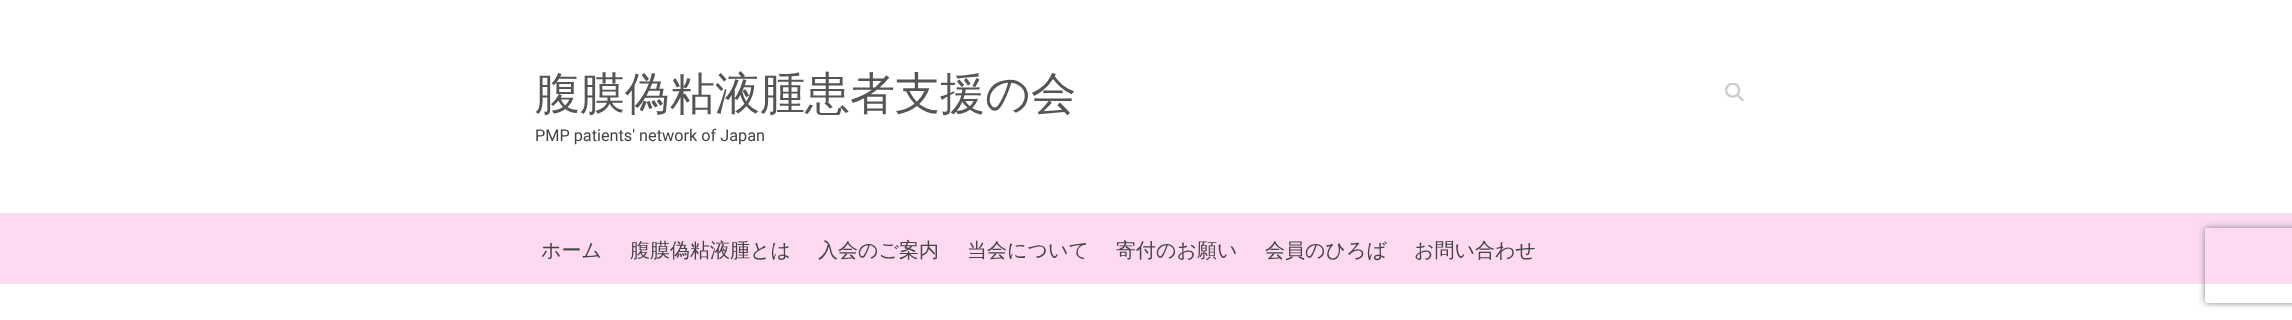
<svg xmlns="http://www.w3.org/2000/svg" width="2292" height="320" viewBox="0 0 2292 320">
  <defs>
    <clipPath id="clip1"><path d="M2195 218H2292V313H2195ZM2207.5 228H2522.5C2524 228 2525 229 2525 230.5V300.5C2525 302 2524 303 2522.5 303H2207.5C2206 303 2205 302 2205 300.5V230.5C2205 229 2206 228 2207.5 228Z" clip-rule="evenodd"/></clipPath>
    <filter id="blur1" x="-50%" y="-200%" width="200%" height="500%"><feGaussianBlur stdDeviation="3"/></filter>
  </defs>
  <rect width="100%" height="100%" fill="#ffffff"/>
  <text x="535" y="109" font-family="WenQuanYi Zen Hei" font-size="45" font-weight="500" fill="#555555">腹膜偽粘液腫患者支援の会</text>
  <text x="535" y="141" font-family="Roboto" font-size="16.25" fill="#444444">PMP patients' network of Japan</text>
  <image x="1725" y="83" width="19" height="18" href="img1.png"/>
  <rect x="0" y="214" width="2292" height="69" fill="#fdd9f2"/>
  <rect x="0" y="213" width="2292" height="1" fill="#eaeaea"/>
  <rect x="0" y="283" width="2292" height="1" fill="#eaeaea"/>
  <text x="541" y="257" font-family="WenQuanYi Zen Hei" font-size="20" font-weight="500" fill="#444444">ホーム</text>
  <text x="630" y="257" font-family="WenQuanYi Zen Hei" font-size="20" font-weight="500" fill="#444444">腹膜偽粘液腫とは</text>
  <text x="818" y="257" font-family="WenQuanYi Zen Hei" font-size="20" font-weight="500" fill="#444444">入会のご案内</text>
  <text x="967" y="257" font-family="WenQuanYi Zen Hei" font-size="20" font-weight="500" fill="#444444">当会について</text>
  <text x="1116" y="257" font-family="WenQuanYi Zen Hei" font-size="20" font-weight="500" fill="#444444">寄付のお願い</text>
  <text x="1265" y="257" font-family="WenQuanYi Zen Hei" font-size="20" font-weight="500" fill="#444444">会員のひろば</text>
  <text x="1414" y="257" font-family="WenQuanYi Zen Hei" font-size="20" font-weight="500" fill="#444444">お問い合わせ</text>
  <g clip-path="url(#clip1)">
    <rect x="2205" y="228" width="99" height="75" rx="2.5" fill="#808080" filter="url(#blur1)"/>
  </g>
</svg>
